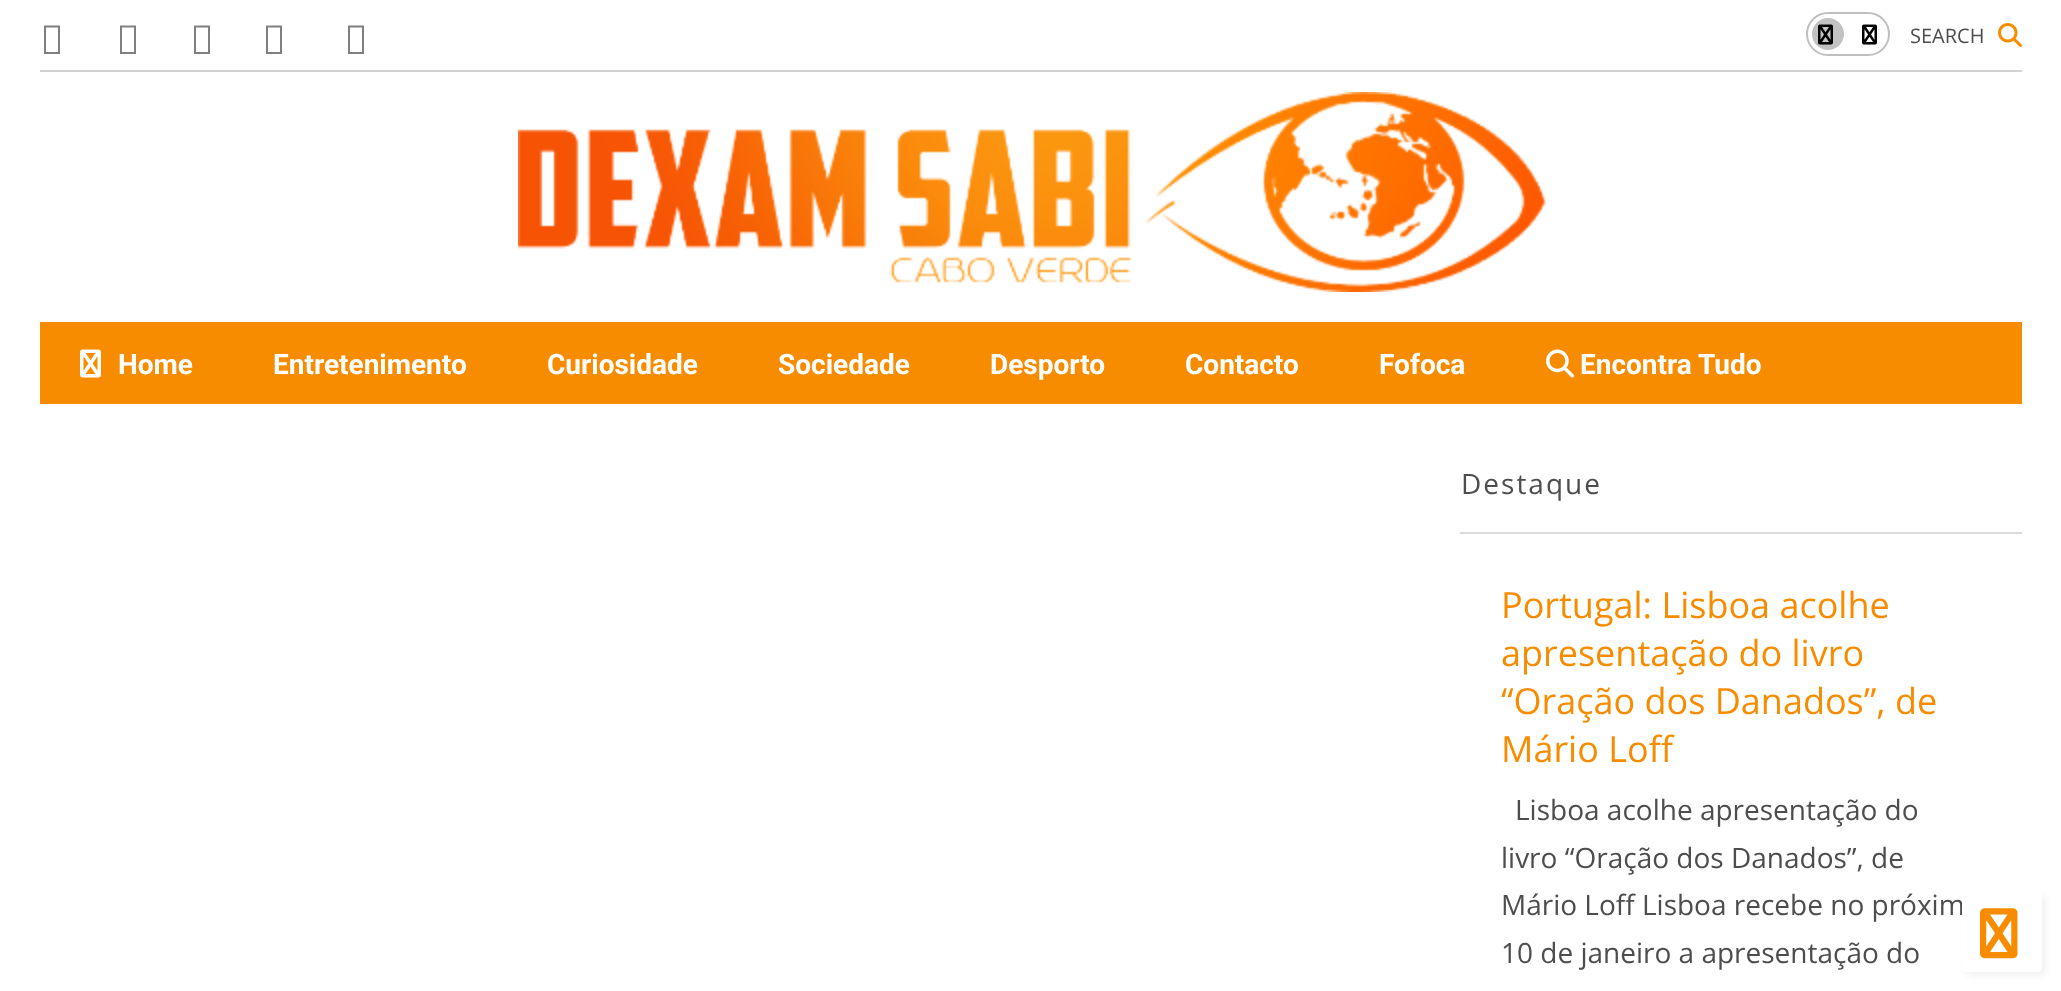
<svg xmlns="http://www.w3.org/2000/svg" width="2061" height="991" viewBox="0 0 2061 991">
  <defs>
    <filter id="blur1" x="-50%" y="-200%" width="200%" height="500%"><feGaussianBlur stdDeviation="3"/></filter>
  </defs>
  <rect width="100%" height="100%" fill="#ffffff"/>
  <rect x="40" y="70" width="1982" height="2" fill="#d2d2d2"/>
  <path d="M44 54V25.5H60V54ZM46 52H58V27.5H46Z" fill="#808080"/>
  <path d="M120 54V25.5H136V54ZM122 52H134V27.5H122Z" fill="#808080"/>
  <path d="M194 54V25.5H210V54ZM196 52H208V27.5H196Z" fill="#808080"/>
  <path d="M266 54V25.5H282V54ZM268 52H280V27.5H268Z" fill="#808080"/>
  <path d="M348 54V25.5H364V54ZM350 52H362V27.5H350Z" fill="#808080"/>
  <rect x="1807" y="13" width="82" height="42" rx="21" fill="none" stroke="#bfbfbf" stroke-width="2"/>
  <circle cx="1828" cy="34" r="16" fill="#c2c2c2"/>
  <image x="1818" y="24" width="15" height="21" href="img1.png"/>
  <image x="1862" y="24" width="15" height="21" href="img2.png"/>
  <text x="1910" y="43" font-family="Open Sans" font-size="20" fill="#4d4d4d">SEARCH</text>
  <image x="1998" y="23" width="24" height="24" href="img3.png"/>
  <image x="518" y="92" width="1028" height="200" href="img4.png"/>
  <rect x="40" y="322" width="1982" height="82" fill="#f88c00"/>
  <image x="80" y="349" width="21" height="29" href="img5.png"/>
  <text x="118" y="374" font-family="Roboto" font-size="28" font-weight="bold" fill="#ffffff">Home</text>
  <text x="273" y="374" font-family="Roboto" font-size="28" font-weight="bold" fill="#ffffff">Entretenimento</text>
  <text x="547" y="374" font-family="Roboto" font-size="28" font-weight="bold" fill="#ffffff">Curiosidade</text>
  <text x="778" y="374" font-family="Roboto" font-size="28" font-weight="bold" fill="#ffffff">Sociedade</text>
  <text x="990" y="374" font-family="Roboto" font-size="28" font-weight="bold" fill="#ffffff">Desporto</text>
  <text x="1185" y="374" font-family="Roboto" font-size="28" font-weight="bold" fill="#ffffff">Contacto</text>
  <text x="1379" y="374" font-family="Roboto" font-size="28" font-weight="bold" fill="#ffffff">Fofoca</text>
  <image x="1546" y="349" width="28" height="29" href="img6.png"/>
  <text x="1580" y="374" font-family="Roboto" font-size="28" font-weight="bold" fill="#ffffff">Encontra Tudo</text>
  <rect x="1460" y="532" width="562" height="2" fill="#dbdbdb"/>
  <text x="1461" y="494" font-family="Open Sans" font-size="28" letter-spacing="2" fill="#4d4d4d">Destaque</text>
  <text x="1501" y="618" font-family="Open Sans" font-size="36" fill="#f88c00">Portugal: Lisboa acolhe</text>
  <text x="1501" y="666" font-family="Open Sans" font-size="36" fill="#f88c00">apresentação do livro</text>
  <text x="1501" y="714" font-family="Open Sans" font-size="36" fill="#f88c00">“Oração dos Danados”, de</text>
  <text x="1501" y="762" font-family="Open Sans" font-size="36" fill="#f88c00">Mário Loff</text>
  <text x="1515" y="820" font-family="Open Sans" font-size="28" fill="#4d4d4d">Lisboa acolhe apresentação do</text>
  <text x="1501" y="868" font-family="Open Sans" font-size="28" fill="#4d4d4d">livro “Oração dos Danados”, de</text>
  <text x="1501" y="915" font-family="Open Sans" font-size="28" fill="#4d4d4d">Mário Loff Lisboa recebe no próxim</text>
  <text x="1501" y="963" font-family="Open Sans" font-size="28" fill="#4d4d4d">10 de janeiro a apresentação do</text>
  <rect x="1966" y="896" width="80" height="80" rx="4" fill="#000000" fill-opacity="0.05" filter="url(#blur1)"/>
  <rect x="1962" y="892" width="80" height="80" rx="4" fill="#ffffff"/>
  <image x="1980" y="908" width="38" height="51" href="img7.png"/>
</svg>
